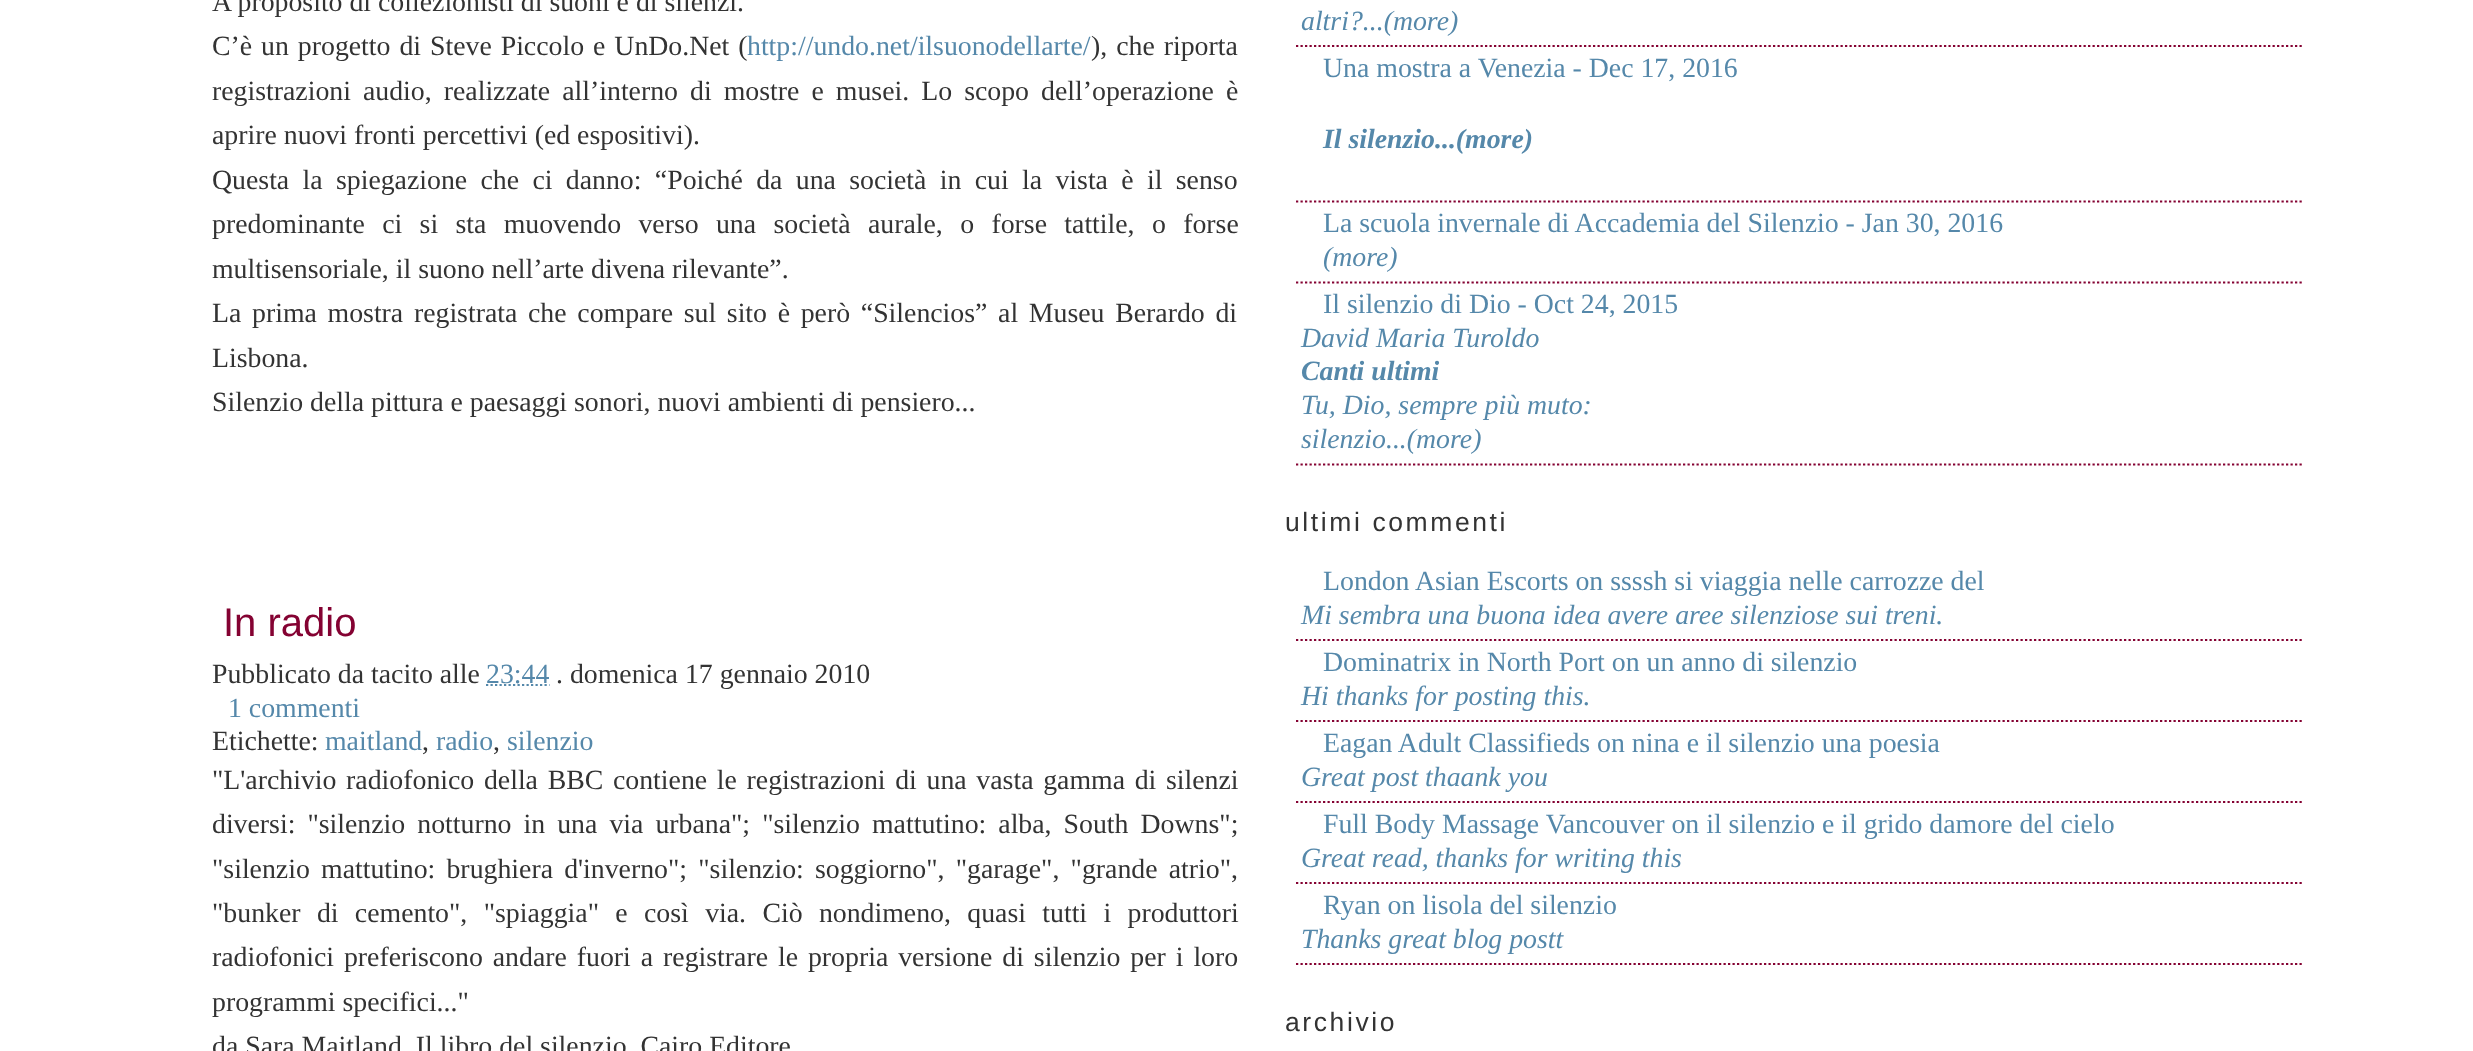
<svg xmlns="http://www.w3.org/2000/svg" width="2473" height="1051" viewBox="0 0 2473 1051">
  <rect width="100%" height="100%" fill="#ffffff"/>
  <text x="212" y="11" font-family="Liberation Serif" font-size="27.8" fill="#333333">A proposito di collezionisti di suoni e di silenzi.</text>
  <text x="212" y="55" word-spacing="2" font-family="Liberation Serif" font-size="27.8" fill="#333333">C’è un progetto di Steve Piccolo e UnDo.Net (</text>
  <text x="747" y="55" font-family="Liberation Serif" font-size="27.8" fill="#5588aa">http://undo.net/ilsuonodellarte/</text>
  <text x="1091" y="55" word-spacing="2" font-family="Liberation Serif" font-size="27.8" fill="#333333">), che riporta</text>
  <text x="212" y="100" word-spacing="5.1" font-family="Liberation Serif" font-size="27.8" fill="#333333">registrazioni audio, realizzate all’interno di mostre e musei. Lo scopo dell’operazione è</text>
  <text x="212" y="144" font-family="Liberation Serif" font-size="27.8" fill="#333333">aprire nuovi fronti percettivi (ed espositivi).</text>
  <text x="212" y="189" word-spacing="6.4" font-family="Liberation Serif" font-size="27.8" fill="#333333">Questa la spiegazione che ci danno: “Poiché da una società in cui la vista è il senso</text>
  <text x="212" y="233" word-spacing="10.4" font-family="Liberation Serif" font-size="27.8" fill="#333333">predominante ci si sta muovendo verso una società aurale, o forse tattile, o forse</text>
  <text x="212" y="278" font-family="Liberation Serif" font-size="27.8" fill="#333333">multisensoriale, il suono nell’arte divena rilevante”.</text>
  <text x="212" y="322" word-spacing="3.75" font-family="Liberation Serif" font-size="27.8" fill="#333333">La prima mostra registrata che compare sul sito è però “Silencios” al Museu Berardo di</text>
  <text x="212" y="367" font-family="Liberation Serif" font-size="27.8" fill="#333333">Lisbona.</text>
  <text x="212" y="411" font-family="Liberation Serif" font-size="27.8" fill="#333333">Silenzio della pittura e paesaggi sonori, nuovi ambienti di pensiero...</text>
  <text x="223" y="636" font-family="Liberation Sans" font-size="40" fill="#840232">In radio</text>
  <text x="212" y="683" font-family="Liberation Serif" font-size="27.8" fill="#333333">Pubblicato da tacito alle</text>
  <path d="M486 685H549.5" fill="none" stroke="#5588aa" stroke-width="2.2" stroke-dasharray="2.25 2.25"/>
  <text x="486" y="683" font-family="Liberation Serif" font-size="27.8" fill="#5588aa">23:44</text>
  <text x="556" y="683" font-family="Liberation Serif" font-size="27.8" fill="#333333">. domenica 17 gennaio 2010</text>
  <text x="228" y="717" font-family="Liberation Serif" font-size="27.8" fill="#5588aa">1 commenti</text>
  <text x="212" y="750" font-family="Liberation Serif" font-size="27.8" fill="#333333">Etichette:</text>
  <text x="325" y="750" font-family="Liberation Serif" font-size="27.8" fill="#5588aa">maitland</text>
  <text x="422" y="750" font-family="Liberation Serif" font-size="27.8" fill="#333333">,</text>
  <text x="436" y="750" font-family="Liberation Serif" font-size="27.8" fill="#5588aa">radio</text>
  <text x="493" y="750" font-family="Liberation Serif" font-size="27.8" fill="#333333">,</text>
  <text x="507" y="750" font-family="Liberation Serif" font-size="27.8" fill="#5588aa">silenzio</text>
  <text x="212" y="789" word-spacing="2.75" font-family="Liberation Serif" font-size="27.8" fill="#333333">"L'archivio radiofonico della BBC contiene le registrazioni di una vasta gamma di silenzi</text>
  <text x="212" y="833" word-spacing="5.1" font-family="Liberation Serif" font-size="27.8" fill="#333333">diversi: "silenzio notturno in una via urbana"; "silenzio mattutino: alba, South Downs";</text>
  <text x="212" y="878" word-spacing="4.25" font-family="Liberation Serif" font-size="27.8" fill="#333333">"silenzio mattutino: brughiera d'inverno"; "silenzio: soggiorno", "garage", "grande atrio",</text>
  <text x="212" y="922" word-spacing="9.4" font-family="Liberation Serif" font-size="27.8" fill="#333333">"bunker di cemento", "spiaggia" e così via. Ciò nondimeno, quasi tutti i produttori</text>
  <text x="212" y="966" word-spacing="3" font-family="Liberation Serif" font-size="27.8" fill="#333333">radiofonici preferiscono andare fuori a registrare le propria versione di silenzio per i loro</text>
  <text x="212" y="1011" font-family="Liberation Serif" font-size="27.8" fill="#333333">programmi specifici..."</text>
  <text x="212" y="1055" font-family="Liberation Serif" font-size="27.8" fill="#333333">da Sara Maitland, Il libro del silenzio, Cairo Editore</text>
  <path d="M1296 46H2304" fill="none" stroke="#840232" stroke-width="2.2" stroke-dasharray="2.25 2.25"/>
  <text x="1301" y="30" font-family="Liberation Serif" font-size="27.8" font-style="italic" fill="#5588aa">altri?...(more)</text>
  <path d="M1296 201.5H2304" fill="none" stroke="#840232" stroke-width="2.2" stroke-dasharray="2.25 2.25"/>
  <text x="1323" y="77" font-family="Liberation Serif" font-size="27.8" fill="#5588aa">Una mostra a Venezia - Dec 17, 2016</text>
  <text x="1323" y="148" font-family="Liberation Serif" font-size="27.8" font-weight="bold" font-style="italic" fill="#5588aa">Il silenzio...(more)</text>
  <path d="M1296 282.5H2304" fill="none" stroke="#840232" stroke-width="2.2" stroke-dasharray="2.25 2.25"/>
  <text x="1323" y="232" font-family="Liberation Serif" font-size="27.8" fill="#5588aa">La scuola invernale di Accademia del Silenzio - Jan 30, 2016</text>
  <text x="1323" y="266" font-family="Liberation Serif" font-size="27.8" font-style="italic" fill="#5588aa">(more)</text>
  <path d="M1296 464.5H2304" fill="none" stroke="#840232" stroke-width="2.2" stroke-dasharray="2.25 2.25"/>
  <text x="1323" y="313" font-family="Liberation Serif" font-size="27.8" fill="#5588aa">Il silenzio di Dio - Oct 24, 2015</text>
  <text x="1301" y="347" font-family="Liberation Serif" font-size="27.8" font-style="italic" fill="#5588aa">David Maria Turoldo</text>
  <text x="1301" y="380" font-family="Liberation Serif" font-size="27.8" font-weight="bold" font-style="italic" fill="#5588aa">Canti ultimi</text>
  <text x="1301" y="414" font-family="Liberation Serif" font-size="27.8" font-style="italic" fill="#5588aa">Tu, Dio, sempre più muto:</text>
  <text x="1301" y="448" font-family="Liberation Serif" font-size="27.8" font-style="italic" fill="#5588aa">silenzio...(more)</text>
  <text x="1285" y="531" font-family="Liberation Sans" font-size="26.5" letter-spacing="2.6" fill="#333333">ultimi commenti</text>
  <path d="M1296 640H2304" fill="none" stroke="#840232" stroke-width="2.2" stroke-dasharray="2.25 2.25"/>
  <text x="1323" y="590" font-family="Liberation Serif" font-size="27.8" fill="#5588aa">London Asian Escorts on ssssh si viaggia nelle carrozze del</text>
  <text x="1301" y="624" font-family="Liberation Serif" font-size="27.8" font-style="italic" fill="#5588aa">Mi sembra una buona idea avere aree silenziose sui treni.</text>
  <path d="M1296 721H2304" fill="none" stroke="#840232" stroke-width="2.2" stroke-dasharray="2.25 2.25"/>
  <text x="1323" y="671" font-family="Liberation Serif" font-size="27.8" fill="#5588aa">Dominatrix in North Port on un anno di silenzio</text>
  <text x="1301" y="705" font-family="Liberation Serif" font-size="27.8" font-style="italic" fill="#5588aa">Hi thanks for posting this.</text>
  <path d="M1296 802H2304" fill="none" stroke="#840232" stroke-width="2.2" stroke-dasharray="2.25 2.25"/>
  <text x="1323" y="752" font-family="Liberation Serif" font-size="27.8" fill="#5588aa">Eagan Adult Classifieds on nina e il silenzio una poesia</text>
  <text x="1301" y="786" font-family="Liberation Serif" font-size="27.8" font-style="italic" fill="#5588aa">Great post thaank you</text>
  <path d="M1296 883H2304" fill="none" stroke="#840232" stroke-width="2.2" stroke-dasharray="2.25 2.25"/>
  <text x="1323" y="833" font-family="Liberation Serif" font-size="27.8" fill="#5588aa">Full Body Massage Vancouver on il silenzio e il grido damore del cielo</text>
  <text x="1301" y="867" font-family="Liberation Serif" font-size="27.8" font-style="italic" fill="#5588aa">Great read, thanks for writing this</text>
  <path d="M1296 964H2304" fill="none" stroke="#840232" stroke-width="2.2" stroke-dasharray="2.25 2.25"/>
  <text x="1323" y="914" font-family="Liberation Serif" font-size="27.8" fill="#5588aa">Ryan on lisola del silenzio</text>
  <text x="1301" y="948" font-family="Liberation Serif" font-size="27.8" font-style="italic" fill="#5588aa">Thanks great blog postt</text>
  <text x="1285" y="1031" font-family="Liberation Sans" font-size="26.5" letter-spacing="2.6" fill="#333333">archivio</text>
</svg>
